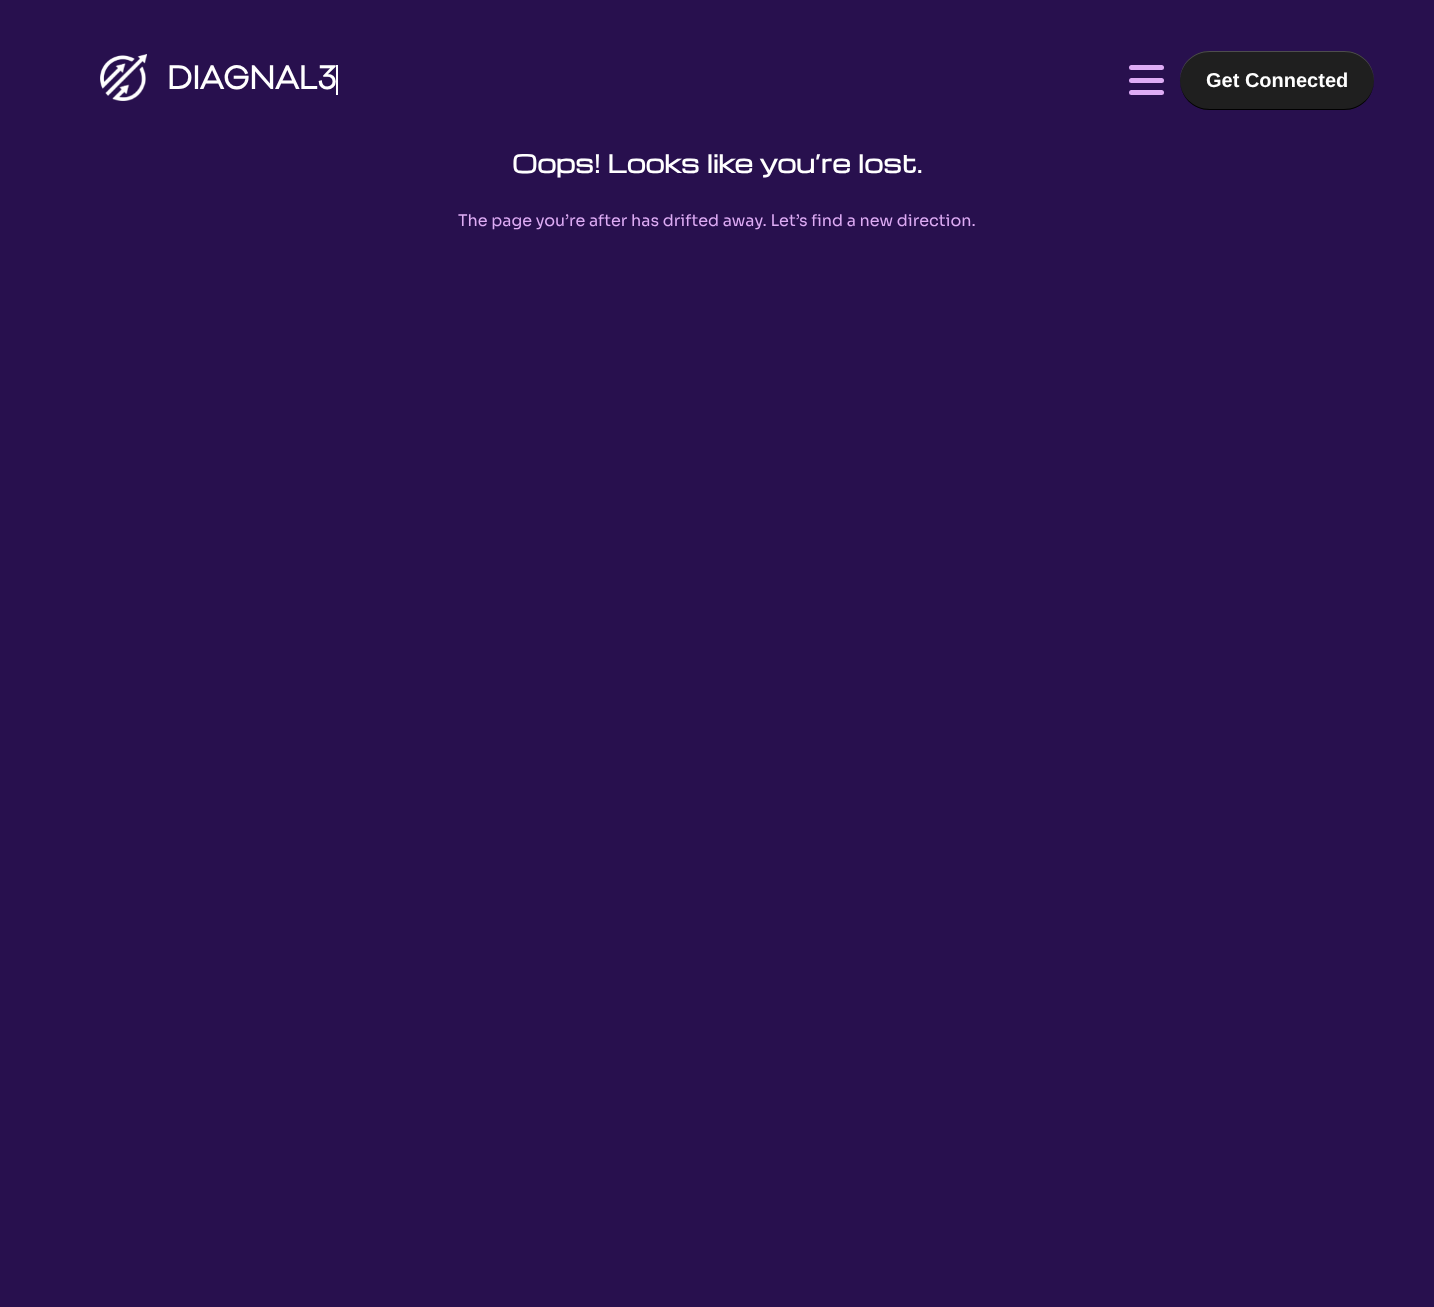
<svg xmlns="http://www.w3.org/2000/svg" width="1434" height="1307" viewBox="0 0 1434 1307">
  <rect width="100%" height="100%" fill="#28104e"/>
  <image x="100" y="54" width="47" height="47" href="img1.png"/>
  <rect x="336" y="65" width="2" height="30" fill="#ffffff"/>
  <text x="167" y="89" font-family="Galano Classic" font-size="30" font-weight="bold" fill="#ffffff">DIAGNAL3</text>
  <rect x="1129" y="65" width="35" height="5" rx="2.5" fill="#deacf5"/>
  <rect x="1129" y="78" width="35" height="5" rx="2.5" fill="#deacf5"/>
  <rect x="1129" y="90" width="35" height="5" rx="2.5" fill="#deacf5"/>
  <rect x="1180" y="51" width="194" height="59" rx="29.5" fill="#1f1f1f"/>
  <path d="M1180 80C1180 97 1193 110 1210 110H1344C1361 110 1374 97 1374 80C1374 96 1361 109 1344 109H1210C1193 109 1180 96 1180 80Z" fill="#000000"/>
  <path d="M1210 52H1344C1361 52 1374 65 1374 81V80C1374 64 1361 51 1344 51H1210C1193 51 1180 64 1180 80V81C1180 65 1193 52 1210 52Z" fill="#4d4d4d"/>
  <text x="1206" y="87" font-family="Liberation Sans" font-size="20" font-weight="bold" fill="#ffffff">Get Connected</text>
  <text x="512" y="173" font-family="Michroma" font-size="24" font-weight="bold" fill="#ffffff">Oops! Looks like you’re lost.</text>
  <text x="458" y="226" font-family="Sora" font-size="16" fill="#deacf5">The page you’re after has drifted away. Let’s find a new direction.</text>
</svg>
